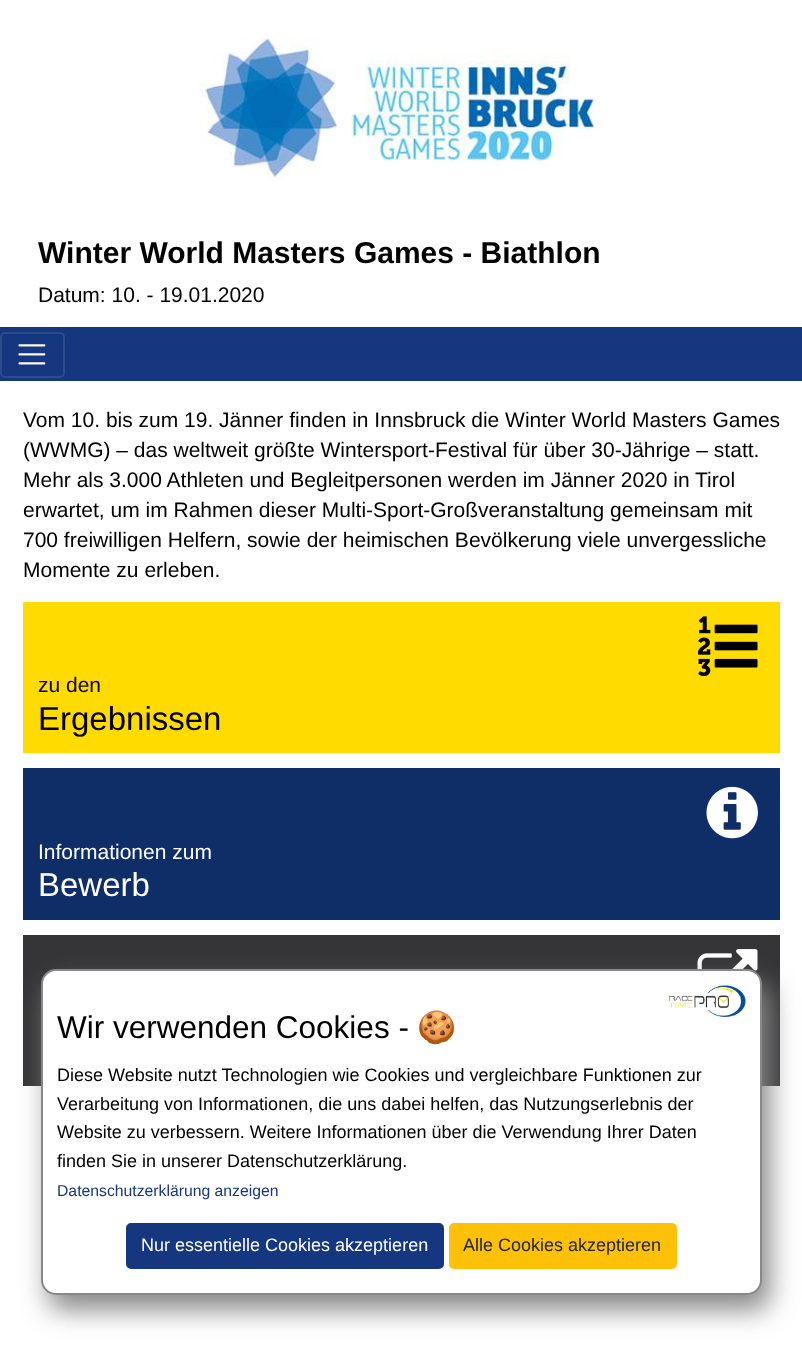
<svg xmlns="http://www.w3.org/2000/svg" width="802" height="1362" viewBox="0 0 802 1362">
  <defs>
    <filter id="blur1" x="-50%" y="-200%" width="200%" height="500%"><feGaussianBlur stdDeviation="13.5"/></filter>
  </defs>
  <rect width="100%" height="100%" fill="#ffffff"/>
  <image x="200" y="37" width="400" height="142" href="img1.png"/>
  <text x="38" y="263" font-family="Liberation Sans" font-size="30" font-weight="bold" fill="#000000">Winter World Masters Games - Biathlon</text>
  <text x="38" y="302" font-family="Liberation Sans" font-size="21" fill="#000000">Datum: 10. - 19.01.2020</text>
  <rect x="0" y="327" width="802" height="54" fill="#15377f"/>
  <rect x="1" y="333" width="63" height="44" rx="4" fill="none" stroke="#2c4b8c" stroke-width="2"/>
  <image x="18" y="344" width="28" height="21" href="img2.png"/>
  <text x="23" y="427" font-family="Liberation Sans" font-size="21" fill="#000000">Vom 10. bis zum 19. Jänner finden in Innsbruck die Winter World Masters Games</text>
  <text x="23" y="457" font-family="Liberation Sans" font-size="21" fill="#000000">(WWMG) – das weltweit größte Wintersport-Festival für über 30-Jährige – statt.</text>
  <text x="23" y="487" font-family="Liberation Sans" font-size="21" fill="#000000">Mehr als 3.000 Athleten und Begleitpersonen werden im Jänner 2020 in Tirol</text>
  <text x="23" y="517" font-family="Liberation Sans" font-size="21" fill="#000000">erwartet, um im Rahmen dieser Multi-Sport-Großveranstaltung gemeinsam mit</text>
  <text x="23" y="547" font-family="Liberation Sans" font-size="21" fill="#000000">700 freiwilligen Helfern, sowie der heimischen Bevölkerung viele unvergessliche</text>
  <text x="23" y="577" font-family="Liberation Sans" font-size="21" fill="#000000">Momente zu erleben.</text>
  <rect x="23" y="602" width="757" height="151" fill="#ffdb00"/>
  <image x="698" y="616" width="60" height="61" href="img3.png"/>
  <text x="38" y="692" font-family="Liberation Sans" font-size="21" fill="#000000">zu den</text>
  <text x="38" y="730" font-family="Liberation Sans" font-size="33" fill="#000000">Ergebnissen</text>
  <rect x="23" y="768" width="757" height="152" fill="#0f2e68"/>
  <image x="706" y="786" width="52" height="53" href="img4.png"/>
  <text x="38" y="859" font-family="Liberation Sans" font-size="21" fill="#ffffff">Informationen zum</text>
  <text x="38" y="896" font-family="Liberation Sans" font-size="33" fill="#ffffff">Bewerb</text>
  <rect x="23" y="935" width="757" height="151" fill="#353537"/>
  <image x="697" y="949" width="61" height="22" href="img5.png"/>
  <rect x="48" y="984" width="722" height="326" rx="15" fill="#888888" filter="url(#blur1)"/>
  <rect x="42" y="970" width="719" height="324" rx="14" fill="#ffffff" stroke="#888888" stroke-width="2"/>
  <image x="669" y="985" width="77" height="32" href="img6.png"/>
  <text x="57" y="1038" font-family="Liberation Sans" font-size="31.5" fill="#000000">Wir verwenden Cookies -</text>
  <text x="417" y="1038" font-family="Noto Color Emoji" font-size="31.5" fill="#000000">🍪</text>
  <text x="57" y="1081" font-family="Liberation Sans" font-size="18" fill="#000000">Diese Website nutzt Technologien wie Cookies und vergleichbare Funktionen zur</text>
  <text x="57" y="1110" font-family="Liberation Sans" font-size="18" fill="#000000">Verarbeitung von Informationen, die uns dabei helfen, das Nutzungserlebnis der</text>
  <text x="57" y="1138" font-family="Liberation Sans" font-size="18" fill="#000000">Website zu verbessern. Weitere Informationen über die Verwendung Ihrer Daten</text>
  <text x="57" y="1167" font-family="Liberation Sans" font-size="18" fill="#000000">finden Sie in unserer Datenschutzerklärung.</text>
  <text x="57" y="1196" font-family="Liberation Sans" font-size="15.75" fill="#15377f">Datenschutzerklärung anzeigen</text>
  <rect x="127" y="1224" width="316" height="44" rx="4" fill="#15377f" stroke="#15377f" stroke-width="2"/>
  <text x="141" y="1251" font-family="Liberation Sans" font-size="18" fill="#ffffff">Nur essentielle Cookies akzeptieren</text>
  <rect x="450" y="1224" width="226" height="44" rx="4" fill="#ffc107" stroke="#ffc107" stroke-width="2"/>
  <text x="463" y="1251" font-family="Liberation Sans" font-size="18" fill="#212529">Alle Cookies akzeptieren</text>
</svg>
